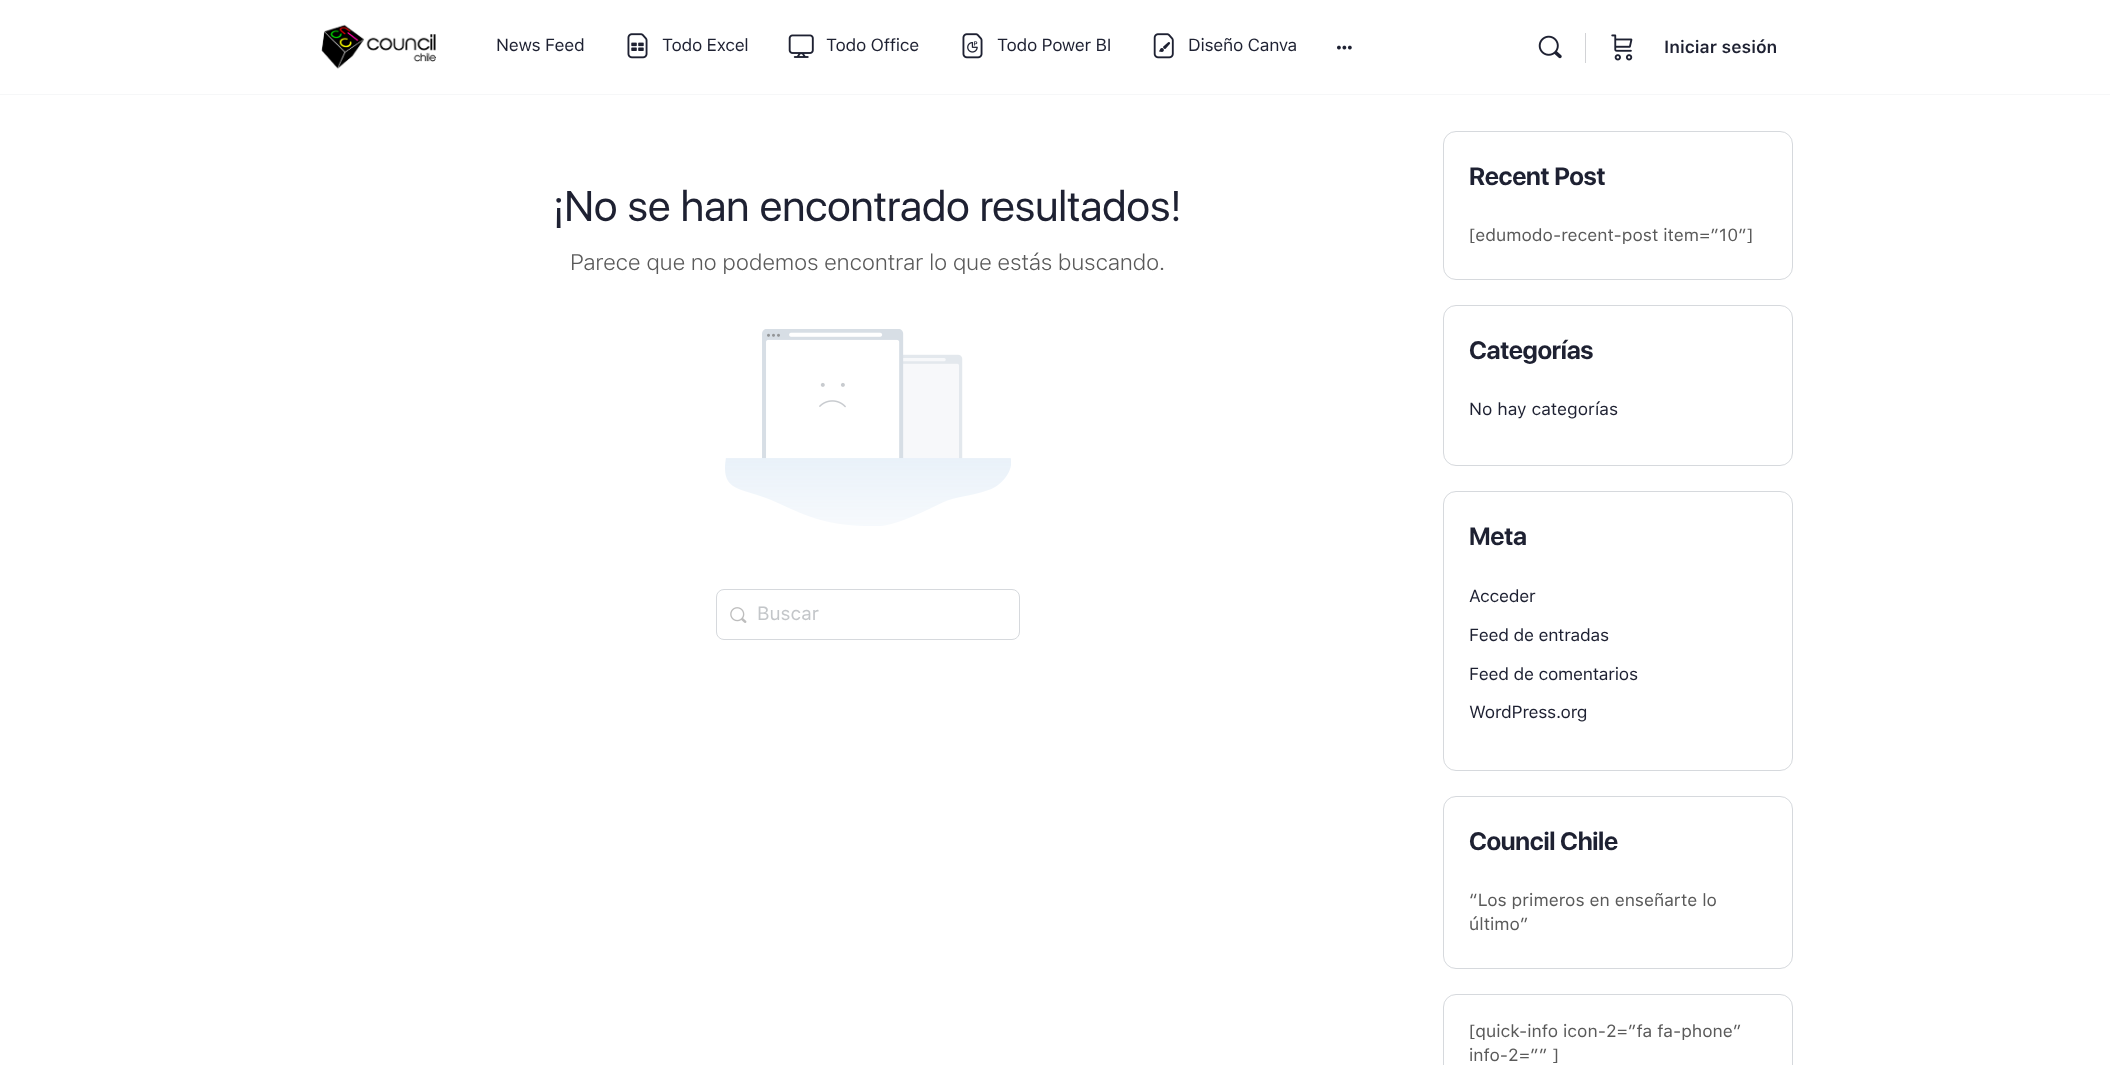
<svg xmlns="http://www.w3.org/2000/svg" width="2110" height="1065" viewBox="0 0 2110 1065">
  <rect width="100%" height="100%" fill="#ffffff"/>
  <rect x="0" y="94" width="2110" height="1" fill="#f6f7f8"/>
  <image x="321" y="24" width="115" height="45" href="img1.png"/>
  <text x="496" y="51" font-family="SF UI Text" font-size="17.5" letter-spacing="-0.3" fill="#1e2132">News Feed</text>
  <image x="627" y="33" width="21" height="26" href="img2.png"/>
  <text x="662" y="51" font-family="SF UI Text" font-size="17.5" letter-spacing="-0.3" fill="#1e2132">Todo Excel</text>
  <image x="788" y="34" width="26" height="24" href="img3.png"/>
  <text x="826" y="51" font-family="SF UI Text" font-size="17.5" letter-spacing="-0.3" fill="#1e2132">Todo Office</text>
  <image x="962" y="33" width="21" height="26" href="img4.png"/>
  <text x="997" y="51" font-family="SF UI Text" font-size="17.5" letter-spacing="-0.3" fill="#1e2132">Todo Power BI</text>
  <image x="1153" y="33" width="21" height="26" href="img5.png"/>
  <text x="1188" y="51" font-family="SF UI Text" font-size="17.5" letter-spacing="-0.3" fill="#1e2132">Diseño Canva</text>
  <image x="1337" y="45" width="15" height="5" href="img6.png"/>
  <image x="1538" y="35" width="24" height="24" href="img7.png"/>
  <rect x="1585" y="33" width="1" height="30" fill="#d2d3d6"/>
  <image x="1611" y="34" width="22" height="27" href="img8.png"/>
  <text x="1664" y="53" font-family="SF UI Text" font-size="17.5" font-weight="600" fill="#1e2132">Iniciar sesión</text>
  <text x="553" y="221" font-family="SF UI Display" font-size="42.5" fill="#1e2132">¡No se han encontrado resultados!</text>
  <text x="570" y="270" font-family="SF UI Text" font-size="22.5" font-weight="300" letter-spacing="-0.3" fill="#5a5a5a">Parece que no podemos encontrar lo que estás buscando.</text>
  <image x="725" y="329" width="286" height="197" href="img9.png"/>
  <rect x="716.5" y="589.5" width="303" height="50" rx="7.5" fill="none" stroke="#d6d9dd"/>
  <image x="730" y="607" width="17" height="16" href="img10.png"/>
  <text x="757" y="620" font-family="SF UI Text" font-size="19" fill="#c3c6c9">Buscar</text>
  <rect x="1443.5" y="131.5" width="349" height="148" rx="12.5" fill="none" stroke="#d6d9dd"/>
  <text x="1469" y="185" font-family="SF UI Display" font-size="25" font-weight="bold" letter-spacing="-0.3" fill="#1e2132">Recent Post</text>
  <text x="1469" y="241" font-family="SF UI Text" font-size="17.5" fill="#5a5a5a">[edumodo-recent-post item=”10″]</text>
  <rect x="1443.5" y="305.5" width="349" height="160" rx="12.5" fill="none" stroke="#d6d9dd"/>
  <text x="1469" y="359" font-family="SF UI Display" font-size="25" font-weight="bold" letter-spacing="-0.3" fill="#1e2132">Categorías</text>
  <text x="1469" y="415" font-family="SF UI Text" font-size="17.5" fill="#1e2132">No hay categorías</text>
  <rect x="1443.5" y="491.5" width="349" height="279" rx="12.5" fill="none" stroke="#d6d9dd"/>
  <text x="1469" y="545" font-family="SF UI Display" font-size="25" font-weight="bold" letter-spacing="-0.3" fill="#1e2132">Meta</text>
  <text x="1469" y="602" font-family="SF UI Text" font-size="17.5" letter-spacing="-0.25" fill="#1e2132">Acceder</text>
  <text x="1469" y="641" font-family="SF UI Text" font-size="17.5" letter-spacing="-0.25" fill="#1e2132">Feed de entradas</text>
  <text x="1469" y="680" font-family="SF UI Text" font-size="17.5" letter-spacing="-0.25" fill="#1e2132">Feed de comentarios</text>
  <text x="1469" y="718" font-family="SF UI Text" font-size="17.5" letter-spacing="-0.25" fill="#1e2132">WordPress.org</text>
  <rect x="1443.5" y="796.5" width="349" height="172" rx="12.5" fill="none" stroke="#d6d9dd"/>
  <text x="1469" y="850" font-family="SF UI Display" font-size="25" font-weight="bold" letter-spacing="-0.3" fill="#1e2132">Council Chile</text>
  <text x="1469" y="906" font-family="SF UI Text" font-size="17.5" fill="#5a5a5a">“Los primeros en enseñarte lo</text>
  <text x="1469" y="930" font-family="SF UI Text" font-size="17.5" fill="#5a5a5a">último”</text>
  <rect x="1443.5" y="994.5" width="349" height="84" rx="12.5" fill="none" stroke="#d6d9dd"/>
  <text x="1469" y="1037" font-family="SF UI Text" font-size="17.5" fill="#5a5a5a">[quick-info icon-2=”fa fa-phone”</text>
  <text x="1469" y="1061" font-family="SF UI Text" font-size="17.5" fill="#5a5a5a">info-2=”” ]</text>
</svg>
